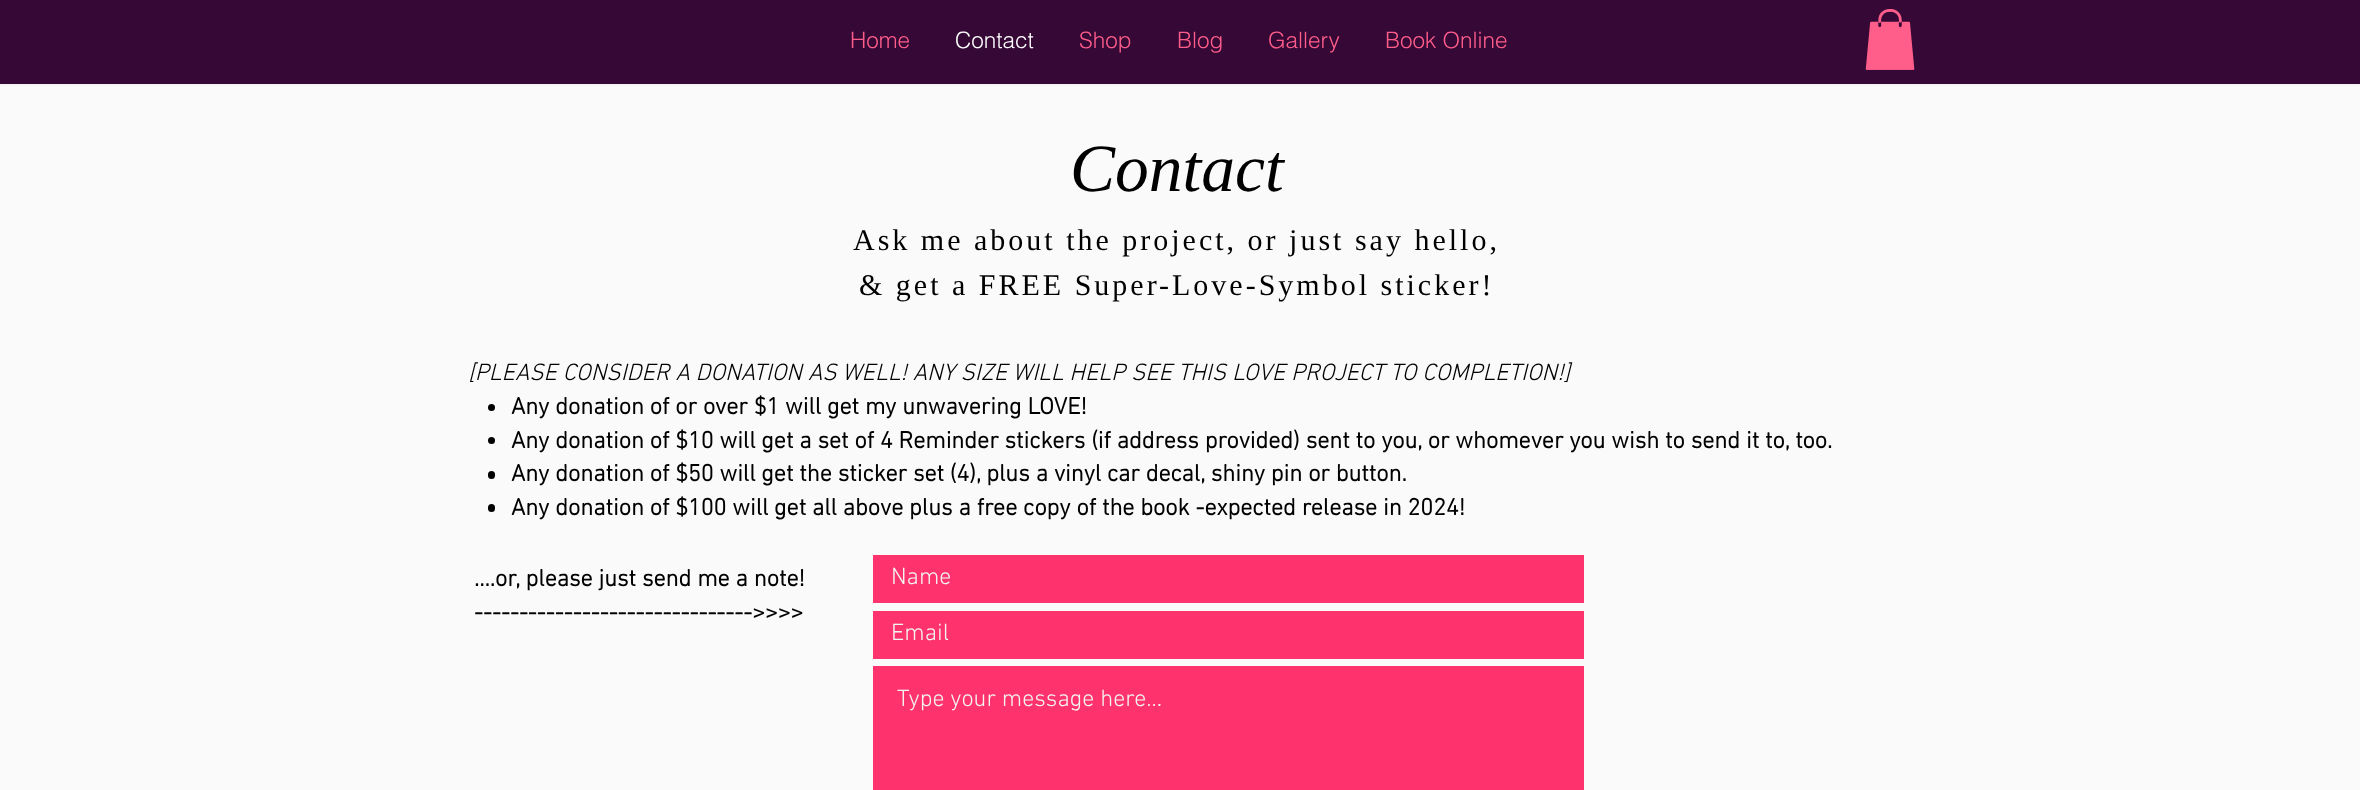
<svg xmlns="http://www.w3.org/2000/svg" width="2360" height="790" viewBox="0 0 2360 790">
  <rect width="100%" height="100%" fill="#f3f3f3"/>
  <rect x="0" y="0" width="2360" height="84" fill="#360836"/>
  <text x="850" y="48" font-family="helvetica" font-size="22.5" font-weight="300" fill="#ff5e8b">Home</text>
  <text x="955" y="48" font-family="helvetica" font-size="22.5" font-weight="300" fill="#ffffff">Contact</text>
  <text x="1079" y="48" font-family="helvetica" font-size="22.5" font-weight="300" fill="#ff5e8b">Shop</text>
  <text x="1177" y="48" font-family="helvetica" font-size="22.5" font-weight="300" fill="#ff5e8b">Blog</text>
  <text x="1268" y="48" font-family="helvetica" font-size="22.5" font-weight="300" fill="#ff5e8b">Gallery</text>
  <text x="1385" y="48" font-family="helvetica" font-size="22.5" font-weight="300" fill="#ff5e8b">Book Online</text>
  <image x="1865" y="9" width="50" height="61" href="img1.png"/>
  <rect x="0" y="86" width="2360" height="704" fill="#fafafa"/>
  <text x="1070" y="191" font-family="Liberation Serif" font-size="67.5" font-style="italic" fill="#000000">Contact</text>
  <text x="853" y="250" font-family="Liberation Serif" font-size="30" letter-spacing="3" fill="#000000">Ask me about the project, or just say hello,</text>
  <text x="859" y="295" font-family="Liberation Serif" font-size="30" letter-spacing="3" fill="#000000">&amp; get a FREE Super-Love-Symbol sticker!</text>
  <text x="468" y="380" font-family="'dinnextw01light'" font-size="24" font-weight="300" font-style="italic" fill="#000000">[PLEASE CONSIDER A DONATION AS WELL! ANY SIZE WILL HELP SEE THIS LOVE PROJECT TO COMPLETION!]</text>
  <circle cx="491.5" cy="407.5" r="3.5" fill="#000000"/>
  <text x="511" y="414" font-family="'dinnextw01light'" font-size="24" font-weight="bold" fill="#000000">Any donation of or over $1 will get my unwavering LOVE!</text>
  <circle cx="491.5" cy="440.5" r="3.5" fill="#000000"/>
  <text x="511" y="448" font-family="'dinnextw01light'" font-size="24" font-weight="bold" fill="#000000">Any donation of $10 will get ‍a set of 4 Reminder stickers (if address provided)‍ sent to you, or whomever you wish to send it to, too.</text>
  <rect x="488" y="471" width="7" height="8" rx="3.5" fill="#000000"/>
  <text x="511" y="481" font-family="'dinnextw01light'" font-size="24" font-weight="bold" fill="#000000">Any donation of $50 will get ‍the sticker set (4), plus a vinyl car decal, shiny pin or button.</text>
  <rect x="488" y="504" width="7" height="8" rx="3.5" fill="#000000"/>
  <text x="511" y="515" font-family="'dinnextw01light'" font-size="24" font-weight="bold" fill="#000000">Any donation of $100 will get ‍all above plus a free copy of the book -expected release in 2024!</text>
  <text x="474" y="586" font-family="'dinnextw01light'" font-size="24" font-weight="bold" fill="#000000">....or, please just send me a note!</text>
  <text x="474" y="620" font-family="'dinnextw01light'" font-size="24" font-weight="bold" fill="#000000">-------------------------------&gt;&gt;&gt;&gt;</text>
  <rect x="873" y="555" width="711" height="48" fill="#fe326c"/>
  <text x="891" y="584" font-family="'dinnextw01light'" font-size="24" font-weight="300" fill="#f3f3f3">Name</text>
  <rect x="873" y="611" width="711" height="48" fill="#fe326c"/>
  <text x="891" y="640" font-family="'dinnextw01light'" font-size="24" font-weight="300" fill="#f3f3f3">Email</text>
  <rect x="873" y="666" width="711" height="124" fill="#fe326c"/>
  <text x="897" y="706" font-family="'dinnextw01light'" font-size="24" font-weight="300" fill="#f3f3f3">Type your message here...</text>
</svg>
